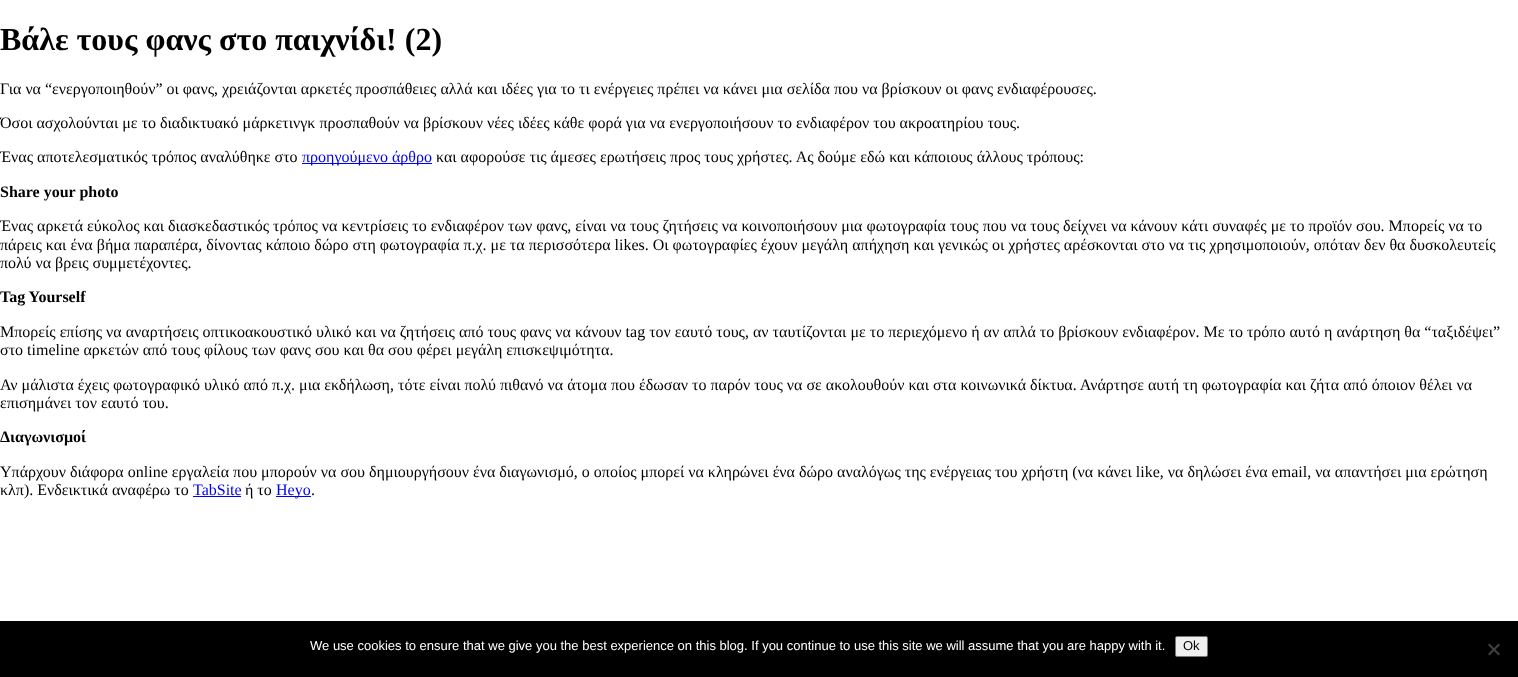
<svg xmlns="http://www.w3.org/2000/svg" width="1518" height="677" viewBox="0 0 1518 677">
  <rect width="100%" height="100%" fill="#ffffff"/>
  <text x="0" y="50" font-family="Liberation Serif" font-size="32" font-weight="bold" fill="#000000">Βάλε τους φανς στο παιχνίδι! (2)</text>
  <text x="0" y="94" font-family="Liberation Serif" font-size="16" fill="#000000">Για να “ενεργοποιηθούν” οι φανς, χρειάζονται αρκετές προσπάθειες αλλά και ιδέες για το τι ενέργειες πρέπει να κάνει μια σελίδα που να βρίσκουν οι φανς ενδιαφέρουσες.</text>
  <text x="0" y="128" font-family="Liberation Serif" font-size="16" fill="#000000">Όσοι ασχολούνται με το διαδικτυακό μάρκετινγκ προσπαθούν να βρίσκουν νέες ιδέες κάθε φορά για να ενεργοποιήσουν το ενδιαφέρον του ακροατηρίου τους.</text>
  <text x="0" y="162" font-family="Liberation Serif" font-size="16" fill="#000000">Ένας αποτελεσματικός τρόπος αναλύθηκε στο</text>
  <rect x="302" y="163" width="130" height="1" fill="#0000ee"/>
  <text x="302" y="162" font-family="Liberation Serif" font-size="16" fill="#0000ee">προηγούμενο άρθρο</text>
  <text x="436" y="162" font-family="Liberation Serif" font-size="16" fill="#000000">και αφορούσε τις άμεσες ερωτήσεις προς τους χρήστες. Ας δούμε εδώ και κάποιους άλλους τρόπους:</text>
  <text x="0" y="197" font-family="Liberation Serif" font-size="16" font-weight="bold" fill="#000000">Share your photo</text>
  <text x="0" y="231" font-family="Liberation Serif" font-size="16" fill="#000000">Ένας αρκετά εύκολος και διασκεδαστικός τρόπος να κεντρίσεις το ενδιαφέρον των φανς, είναι να τους ζητήσεις να κοινοποιήσουν μια φωτογραφία τους που να τους δείχνει να κάνουν κάτι συναφές με το προϊόν σου. Μπορείς να το</text>
  <text x="0" y="250" font-family="Liberation Serif" font-size="16" fill="#000000">πάρεις και ένα βήμα παραπέρα, δίνοντας κάποιο δώρο στη φωτογραφία π.χ. με τα περισσότερα likes. Οι φωτογραφίες έχουν μεγάλη απήχηση και γενικώς οι χρήστες αρέσκονται στο να τις χρησιμοποιούν, οπόταν δεν θα δυσκολευτείς</text>
  <text x="0" y="268" font-family="Liberation Serif" font-size="16" fill="#000000">πολύ να βρεις συμμετέχοντες.</text>
  <text x="0" y="302" font-family="Liberation Serif" font-size="16" font-weight="bold" fill="#000000">Tag Yourself</text>
  <text x="0" y="337" font-family="Liberation Serif" font-size="16" fill="#000000">Μπορείς επίσης να αναρτήσεις οπτικοακουστικό υλικό και να ζητήσεις από τους φανς να κάνουν tag τον εαυτό τους, αν ταυτίζονται με το περιεχόμενο ή αν απλά το βρίσκουν ενδιαφέρον. Με το τρόπο αυτό η ανάρτηση θα “ταξιδέψει”</text>
  <text x="0" y="355" font-family="Liberation Serif" font-size="16" fill="#000000">στο timeline αρκετών από τους φίλους των φανς σου και θα σου φέρει μεγάλη επισκεψιμότητα.</text>
  <text x="0" y="390" font-family="Liberation Serif" font-size="16" fill="#000000">Αν μάλιστα έχεις φωτογραφικό υλικό από π.χ. μια εκδήλωση, τότε είναι πολύ πιθανό να άτομα που έδωσαν το παρόν τους να σε ακολουθούν και στα κοινωνικά δίκτυα. Ανάρτησε αυτή τη φωτογραφία και ζήτα από όποιον θέλει να</text>
  <text x="0" y="408" font-family="Liberation Serif" font-size="16" fill="#000000">επισημάνει τον εαυτό του.</text>
  <text x="0" y="442" font-family="Liberation Serif" font-size="16" font-weight="bold" fill="#000000">Διαγωνισμοί</text>
  <text x="0" y="477" font-family="Liberation Serif" font-size="16" fill="#000000">Υπάρχουν διάφορα online εργαλεία που μπορούν να σου δημιουργήσουν ένα διαγωνισμό, ο οποίος μπορεί να κληρώνει ένα δώρο αναλόγως της ενέργειας του χρήστη (να κάνει like, να δηλώσει ένα email, να απαντήσει μια ερώτηση</text>
  <text x="0" y="495" font-family="Liberation Serif" font-size="16" fill="#000000">κλπ). Ενδεικτικά αναφέρω το</text>
  <text x="193" y="495" font-family="Liberation Serif" font-size="16" fill="#0000ee">TabSite</text>
  <rect x="193" y="496" width="48" height="1" fill="#0000ee"/>
  <text x="245" y="495" font-family="Liberation Serif" font-size="16" fill="#000000">ή το</text>
  <rect x="276" y="496" width="35" height="1" fill="#0000ee"/>
  <text x="276" y="495" font-family="Liberation Serif" font-size="16" fill="#0000ee">Heyo</text>
  <text x="311" y="495" font-family="Liberation Serif" font-size="16" fill="#000000">.</text>
  <rect x="0" y="621" width="1518" height="56" fill="#000000"/>
  <text x="310" y="650" font-family="Liberation Sans" font-size="13" fill="#ffffff">We use cookies to ensure that we give you the best experience on this blog. If you continue to use this site we will assume that you are happy with it.</text>
  <rect x="1175.5" y="636.5" width="32" height="20" rx="1.5" fill="#efefef" stroke="#767676"/>
  <text x="1183" y="650" font-family="Liberation Sans" font-size="13" fill="#000000">Ok</text>
  <path d="M1498.5 643.5L1500 645L1489.5 655.5L1488 654Z" fill="#404040"/>
  <path d="M1488 645L1489.5 643.5L1500 654L1498.5 655.5Z" fill="#404040"/>
</svg>
